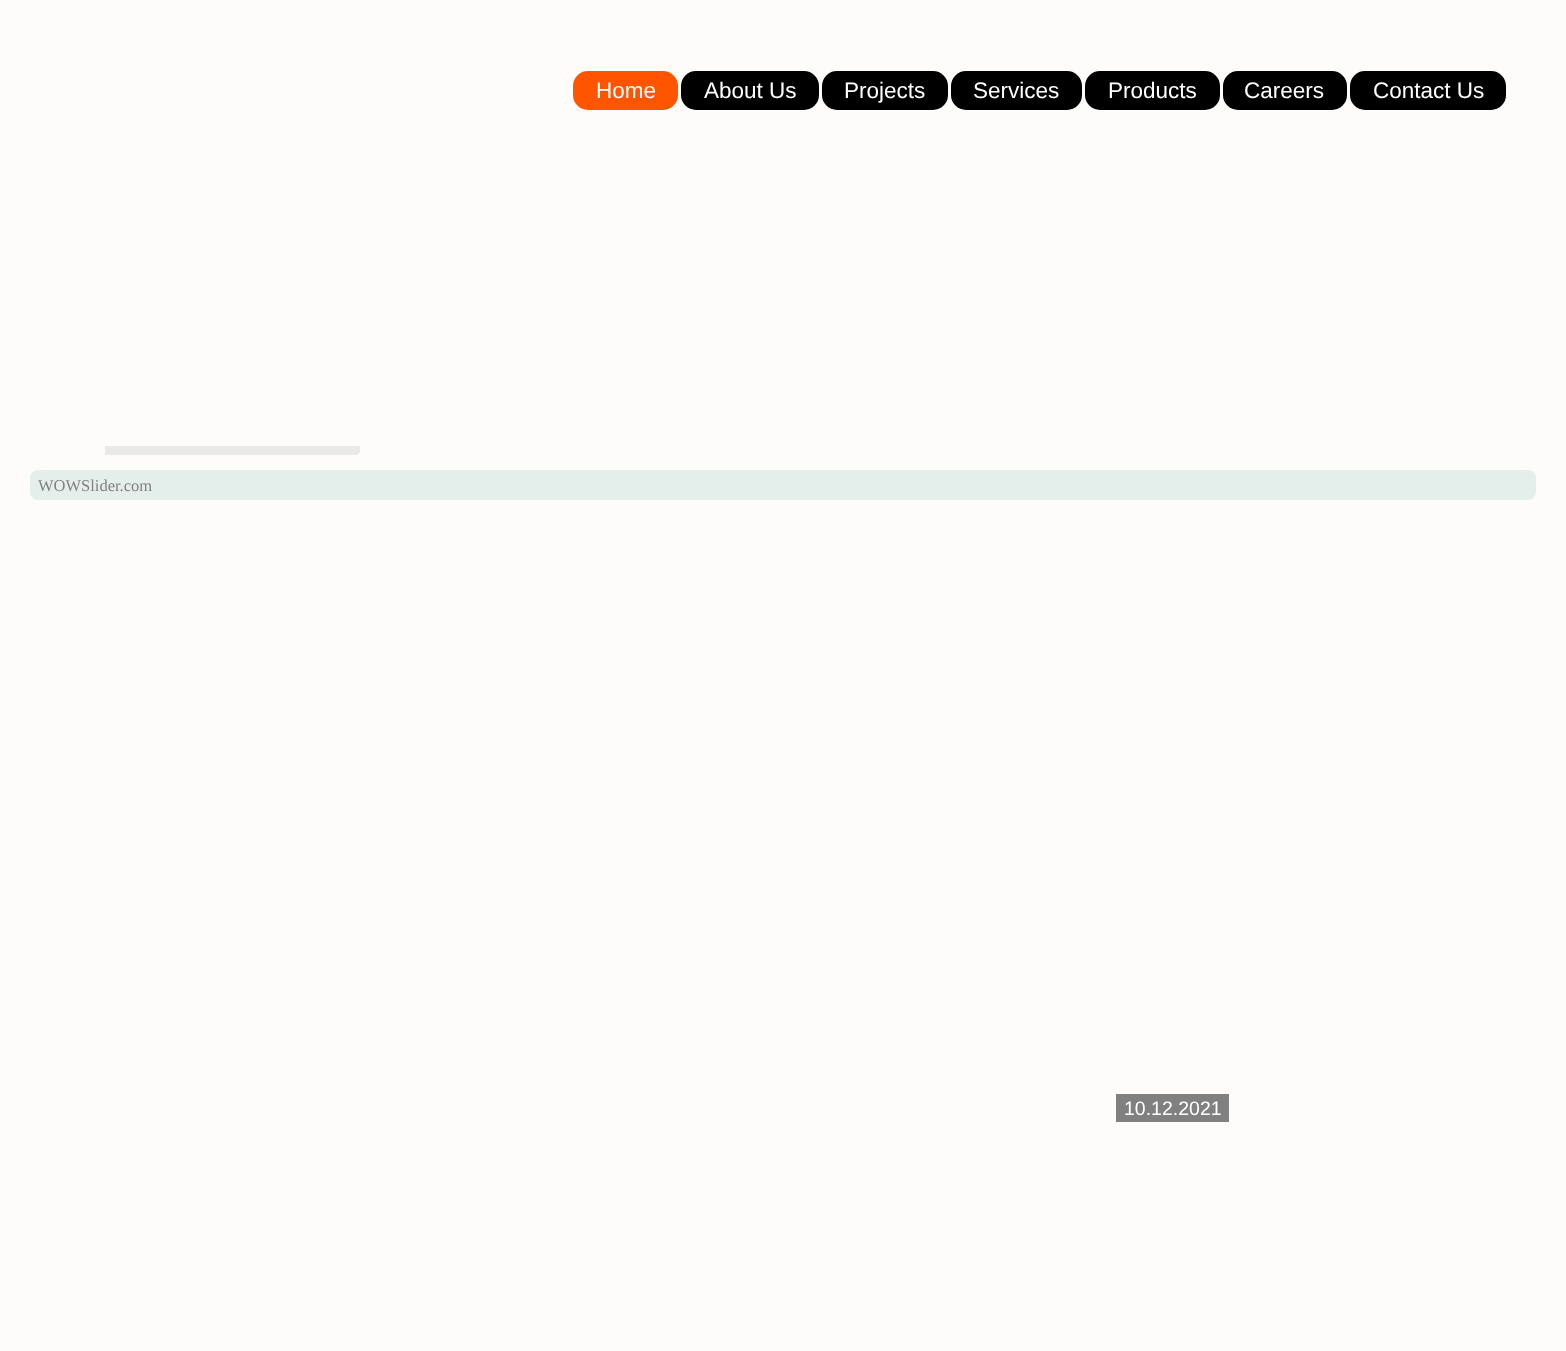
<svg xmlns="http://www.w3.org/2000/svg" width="1566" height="1351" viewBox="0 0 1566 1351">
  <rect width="100%" height="100%" fill="#fdfcfb"/>
  <rect x="573" y="71" width="105" height="39" rx="15" fill="#ff5500"/>
  <text x="596" y="98" font-family="Liberation Sans" font-size="22.5" fill="#ffffff">Home</text>
  <rect x="681" y="71" width="138" height="39" rx="15" fill="#000000"/>
  <text x="704" y="98" font-family="Liberation Sans" font-size="22.5" fill="#ffffff">About Us</text>
  <rect x="822" y="71" width="126" height="39" rx="15" fill="#000000"/>
  <text x="844" y="98" font-family="Liberation Sans" font-size="22.5" fill="#ffffff">Projects</text>
  <rect x="951" y="71" width="131" height="39" rx="15" fill="#000000"/>
  <text x="973" y="98" font-family="Liberation Sans" font-size="22.5" fill="#ffffff">Services</text>
  <rect x="1085" y="71" width="135" height="39" rx="15" fill="#000000"/>
  <text x="1108" y="98" font-family="Liberation Sans" font-size="22.5" fill="#ffffff">Products</text>
  <rect x="1223" y="71" width="124" height="39" rx="15" fill="#000000"/>
  <text x="1244" y="98" font-family="Liberation Sans" font-size="22.5" fill="#ffffff">Careers</text>
  <rect x="1350" y="71" width="156" height="39" rx="15" fill="#000000"/>
  <text x="1373" y="98" font-family="Liberation Sans" font-size="22.5" fill="#ffffff">Contact Us</text>
  <path d="M105 446H360V451C360 453 358 455 356 455H105Z" fill="#e9e9e8"/>
  <rect x="30" y="470" width="1506" height="30" rx="8" fill="#e4efeb"/>
  <text x="38" y="491" font-family="Liberation Serif" font-size="16.5" fill="#837f80">WOWSlider.com</text>
  <rect x="1116" y="1094" width="113" height="28" fill="#808080"/>
  <text x="1124" y="1115" font-family="Liberation Sans" font-size="19.5" fill="#ffffff">10.12.2021</text>
</svg>
